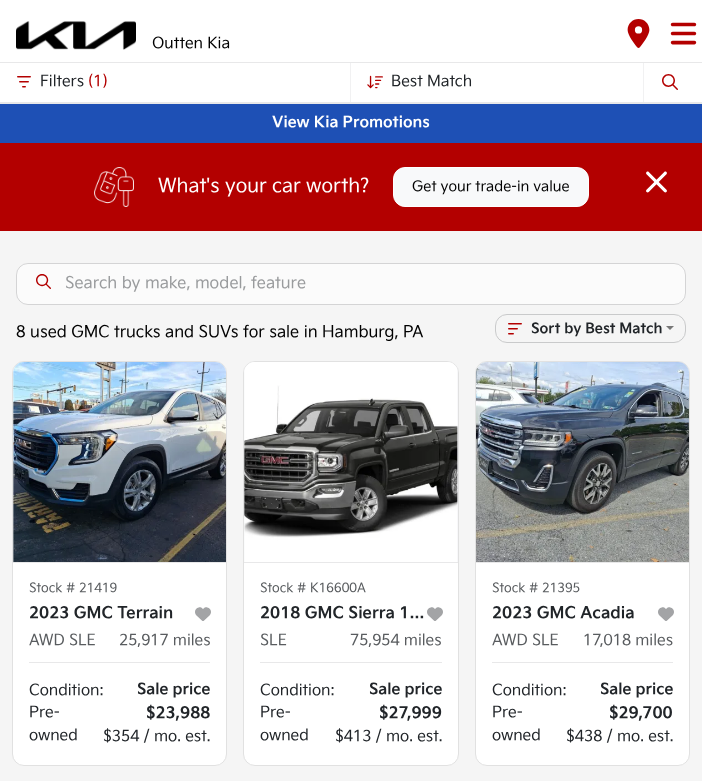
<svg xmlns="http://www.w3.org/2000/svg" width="702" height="781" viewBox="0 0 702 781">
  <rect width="100%" height="100%" fill="#f5f5f5"/>
  <rect x="0" y="0" width="702" height="62" fill="#ffffff"/>
  <image x="16" y="21" width="120" height="29" href="img1.png"/>
  <text x="152" y="48" font-family="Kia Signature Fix" font-size="15.25" fill="#000000">Outten Kia</text>
  <image x="627" y="19" width="23" height="29" href="img2.png"/>
  <image x="670" y="22" width="27" height="23" href="img3.png"/>
  <rect x="0" y="63" width="702" height="39" fill="#ffffff"/>
  <rect x="0" y="102" width="702" height="2" fill="#e8e8e9"/>
  <rect x="0" y="62" width="702" height="1" fill="#e8e8e9"/>
  <image x="17" y="76" width="14" height="12" href="img4.png"/>
  <text x="40" y="86" font-family="Kia Signature Fix" font-size="15.25" fill="#212529">Filters</text>
  <text x="88" y="86" font-family="Kia Signature Fix" font-size="15.25" fill="#b30000">(1)</text>
  <rect x="350" y="63" width="1" height="39" fill="#f1f1f2"/>
  <image x="367" y="75" width="16" height="14" href="img5.png"/>
  <text x="391" y="86" font-family="Kia Signature Fix" font-size="15.25" fill="#212529">Best Match</text>
  <rect x="643" y="63" width="1" height="39" fill="#f1f1f2"/>
  <image x="662" y="74" width="16" height="16" href="img6.png"/>
  <rect x="0" y="143" width="702" height="88" fill="#b30000"/>
  <image x="94" y="167" width="40" height="40" href="img7.png"/>
  <text x="158" y="192" font-family="Kia Signature Fix" font-size="19.25" fill="#ffffff">What's your car worth?</text>
  <rect x="393.5" y="167.5" width="195" height="39" rx="11.5" fill="#f8f9fa" stroke="#ffffff"/>
  <text x="412" y="191" font-family="Kia Signature Fix" font-size="14.25" fill="#000000">Get your trade-in value</text>
  <image x="646" y="171" width="21" height="22" href="img8.png"/>
  <rect x="17" y="264" width="668" height="40" rx="11" fill="#fbfbfb"/>
  <rect x="16.5" y="263.5" width="669" height="41" rx="11.5" fill="none" stroke="#181c21" stroke-opacity="0.15"/>
  <image x="36" y="274" width="15" height="15" href="img9.png"/>
  <text x="65" y="288" font-family="Kia Signature Fix" font-size="16" fill="#999b9d">Search by make, model, feature</text>
  <text x="16" y="337" font-family="Kia Signature Fix" font-size="16" fill="#000000">8 used GMC trucks and SUVs for sale in Hamburg, PA</text>
  <rect x="495.5" y="314.5" width="190" height="28" rx="11.5" fill="none" stroke="#c9cacb"/>
  <image x="508" y="323" width="14" height="12" href="img10.png"/>
  <text x="531" y="333" font-family="Kia Signature Fix" font-size="14" font-weight="bold" fill="#212529">Sort by Best Match</text>
  <path d="M666 326H674L670 330Z" fill="#777777"/>
  <rect x="12.5" y="361.5" width="214" height="404" rx="11.5" fill="#ffffff" stroke="#e1e1e1"/>
  <rect x="13" y="562" width="213" height="1" fill="#e8e8e9"/>
  <path d="M24 362H215C221 362 226 367 226 373V562H13V373C13 367 18 362 24 362Z" fill="#f4f5f7"/>
  <image x="13" y="362" width="213" height="200" href="img11.png"/>
  <text x="29" y="592" font-family="Kia Signature Fix" font-size="12.75" fill="#595c5f">Stock # 21419</text>
  <text x="29" y="618" font-family="Kia Signature Fix" font-size="16" font-weight="bold" fill="#212529">2023 GMC Terrain</text>
  <image x="195" y="607" width="16" height="14" href="img12.png"/>
  <text x="29" y="645" font-family="Kia Signature Fix" font-size="15.25" fill="#595c5f">AWD SLE</text>
  <text x="119" y="645" font-family="Kia Signature Fix" font-size="15.25" fill="#595c5f">25,917 miles</text>
  <rect x="29" y="662" width="181" height="1" fill="#e8e8e9"/>
  <text x="29" y="695" font-family="Kia Signature Fix" font-size="15.25" fill="#212529">Condition:</text>
  <text x="29" y="717" font-family="Kia Signature Fix" font-size="15.25" fill="#212529">Pre-</text>
  <text x="29" y="740" font-family="Kia Signature Fix" font-size="15.25" fill="#212529">owned</text>
  <text x="137" y="694" font-family="Kia Signature Fix" font-size="15.25" font-weight="bold" fill="#212529">Sale price</text>
  <text x="146" y="718" font-family="Kia Signature Fix" font-size="16" font-weight="bold" fill="#212529">$23,988</text>
  <text x="103" y="741" font-family="Kia Signature Fix" font-size="15.25" fill="#212529">$354 / mo. est.</text>
  <rect x="243.5" y="361.5" width="215" height="404" rx="11.5" fill="#ffffff" stroke="#e1e1e1"/>
  <rect x="244" y="562" width="214" height="1" fill="#e8e8e9"/>
  <path d="M255 362H447C453 362 458 367 458 373V562H244V373C244 367 249 362 255 362Z" fill="#f4f5f7"/>
  <image x="244" y="362" width="214" height="200" href="img13.png"/>
  <text x="260" y="592" font-family="Kia Signature Fix" font-size="12.75" fill="#595c5f">Stock # K16600A</text>
  <text x="260" y="618" font-family="Kia Signature Fix" font-size="16" font-weight="bold" fill="#212529">2018 GMC Sierra 1…</text>
  <image x="427" y="607" width="16" height="14" href="img12.png"/>
  <text x="260" y="645" font-family="Kia Signature Fix" font-size="15.25" fill="#595c5f">SLE</text>
  <text x="350" y="645" font-family="Kia Signature Fix" font-size="15.25" fill="#595c5f">75,954 miles</text>
  <rect x="260" y="662" width="182" height="1" fill="#e8e8e9"/>
  <text x="260" y="695" font-family="Kia Signature Fix" font-size="15.25" fill="#212529">Condition:</text>
  <text x="260" y="717" font-family="Kia Signature Fix" font-size="15.25" fill="#212529">Pre-</text>
  <text x="260" y="740" font-family="Kia Signature Fix" font-size="15.25" fill="#212529">owned</text>
  <text x="369" y="694" font-family="Kia Signature Fix" font-size="15.25" font-weight="bold" fill="#212529">Sale price</text>
  <text x="379" y="718" font-family="Kia Signature Fix" font-size="16" font-weight="bold" fill="#212529">$27,999</text>
  <text x="335" y="741" font-family="Kia Signature Fix" font-size="15.25" fill="#212529">$413 / mo. est.</text>
  <rect x="475.5" y="361.5" width="214" height="404" rx="11.5" fill="#ffffff" stroke="#e1e1e1"/>
  <rect x="476" y="562" width="213" height="1" fill="#e8e8e9"/>
  <image x="476" y="362" width="213" height="200" href="img14.png"/>
  <text x="492" y="592" font-family="Kia Signature Fix" font-size="12.75" fill="#595c5f">Stock # 21395</text>
  <text x="492" y="618" font-family="Kia Signature Fix" font-size="16" font-weight="bold" fill="#212529">2023 GMC Acadia</text>
  <image x="658" y="607" width="16" height="14" href="img12.png"/>
  <text x="492" y="645" font-family="Kia Signature Fix" font-size="15.25" fill="#595c5f">AWD SLE</text>
  <text x="583" y="645" font-family="Kia Signature Fix" font-size="15.25" fill="#595c5f">17,018 miles</text>
  <rect x="492" y="662" width="181" height="1" fill="#e8e8e9"/>
  <text x="492" y="695" font-family="Kia Signature Fix" font-size="15.25" fill="#212529">Condition:</text>
  <text x="492" y="717" font-family="Kia Signature Fix" font-size="15.25" fill="#212529">Pre-</text>
  <text x="492" y="740" font-family="Kia Signature Fix" font-size="15.25" fill="#212529">owned</text>
  <text x="600" y="694" font-family="Kia Signature Fix" font-size="15.25" font-weight="bold" fill="#212529">Sale price</text>
  <text x="609" y="718" font-family="Kia Signature Fix" font-size="16" font-weight="bold" fill="#212529">$29,700</text>
  <text x="566" y="741" font-family="Kia Signature Fix" font-size="15.25" fill="#212529">$438 / mo. est.</text>
  <rect x="0" y="104" width="702" height="39" fill="#1e50b5"/>
  <text x="272" y="127" font-family="Kia Signature Fix" font-size="15.25" font-weight="bold" fill="#ffffff">View Kia Promotions</text>
</svg>
